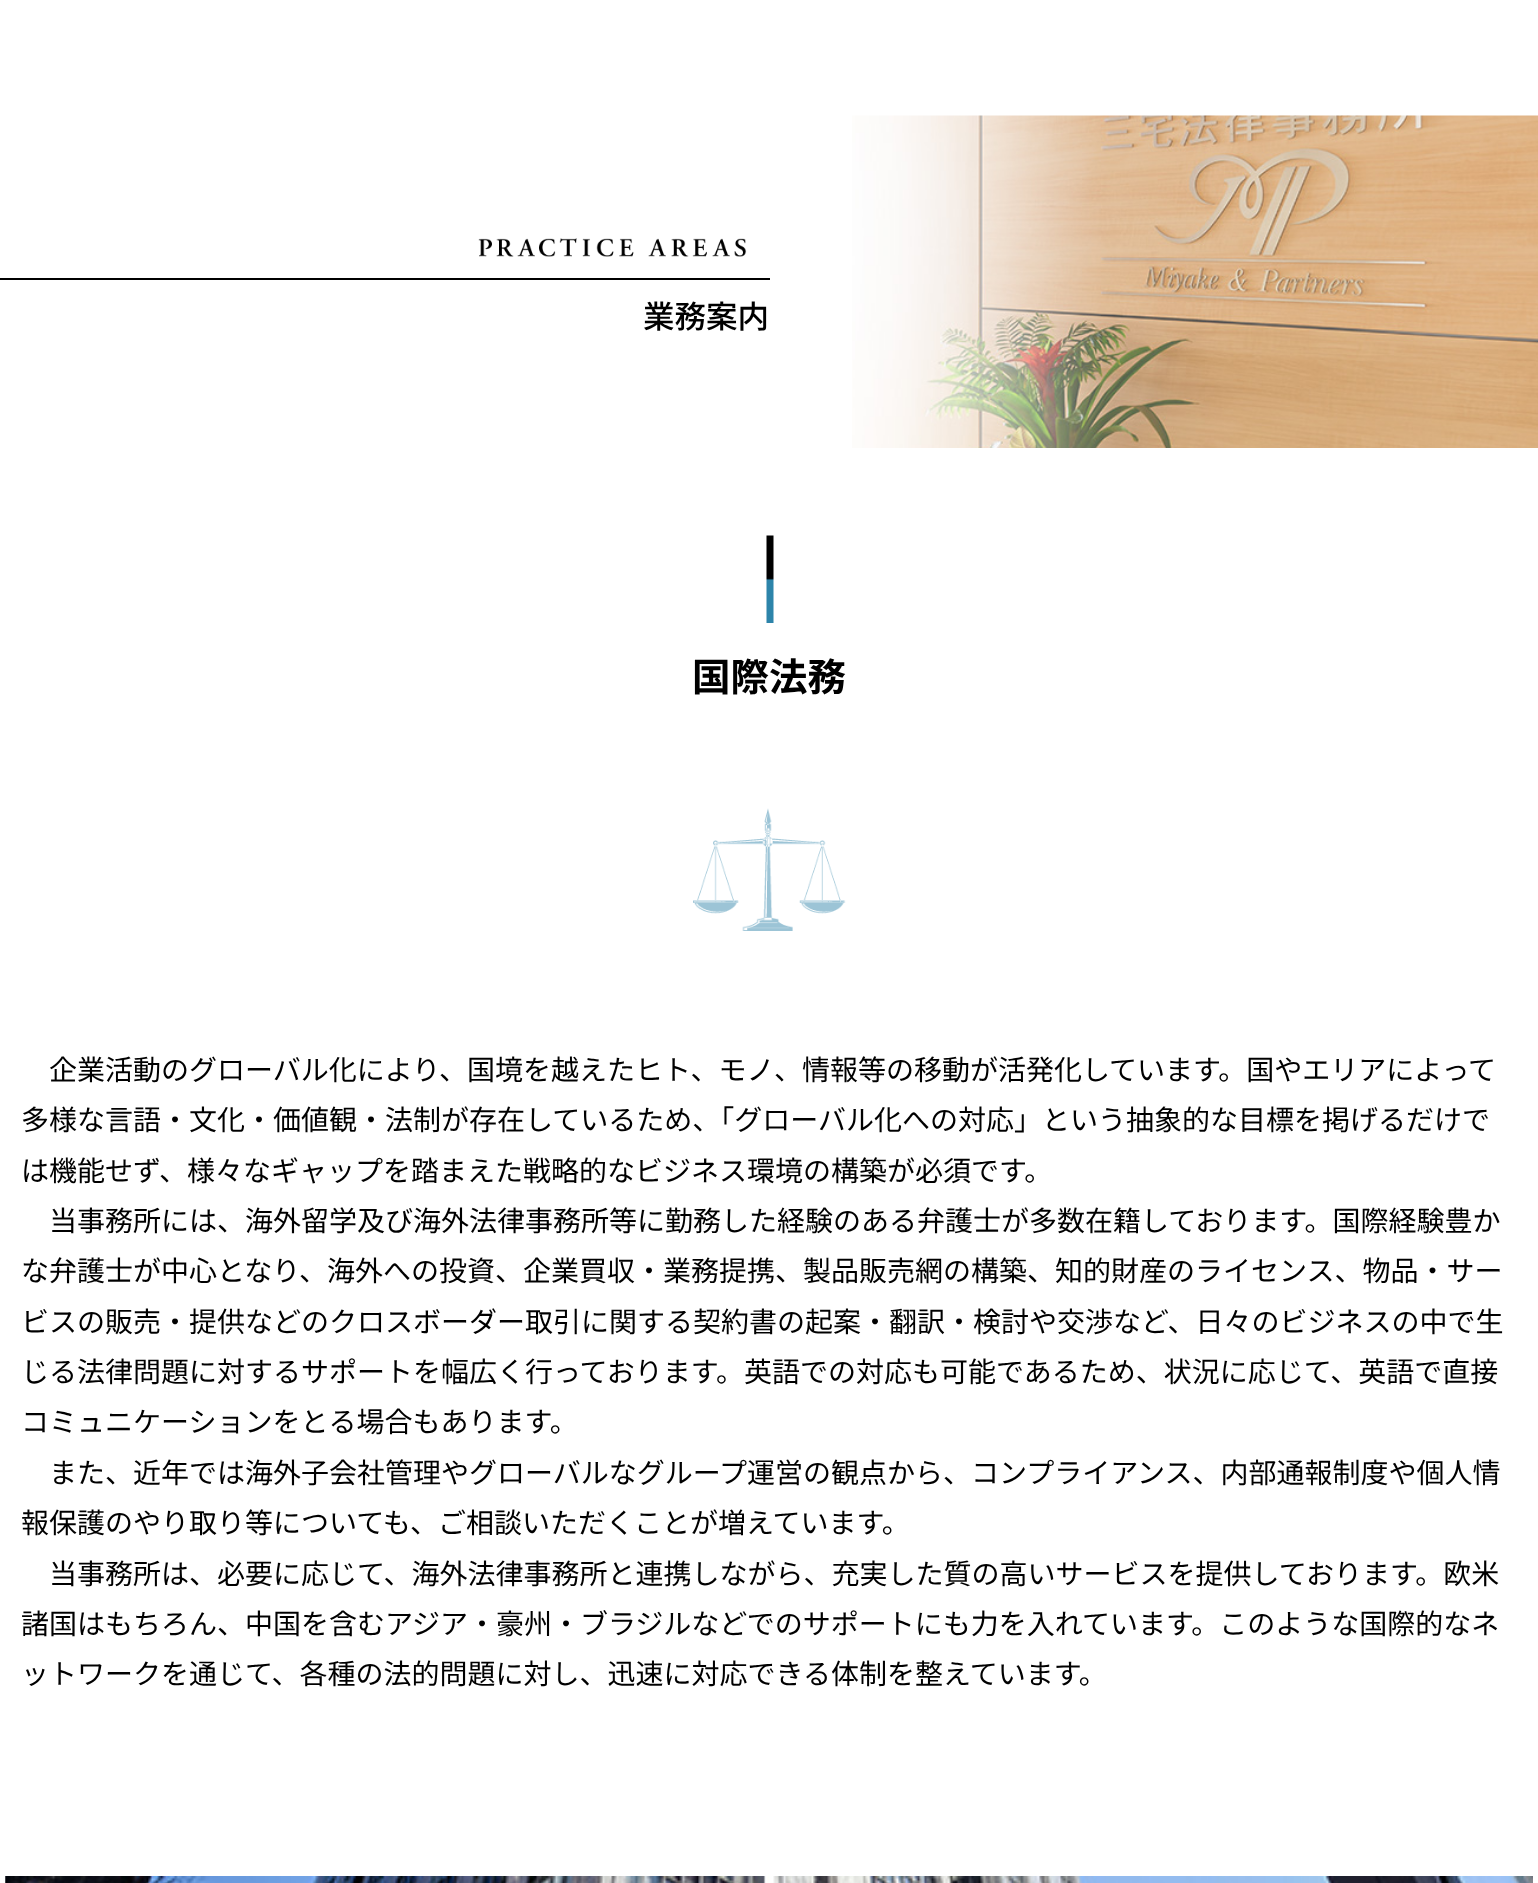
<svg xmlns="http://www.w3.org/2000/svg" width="1538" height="1883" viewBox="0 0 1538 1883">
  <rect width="100%" height="100%" fill="#ffffff"/>
  <rect x="0" y="278" width="770" height="2" fill="#000000"/>
  <image x="478" y="238" width="269" height="19" href="img1.png"/>
  <text x="643" y="328" font-family="Noto Sans JP" font-size="31.5" font-weight="500" fill="#000000">業務案内</text>
  <image x="852" y="115" width="686" height="333" href="img2.png"/>
  <image x="766" y="535" width="8" height="88" href="img3.png"/>
  <text x="692" y="691" font-family="Noto Sans JP" font-size="38.5" font-weight="bold" fill="#000000">国際法務</text>
  <image x="693" y="808" width="153" height="123" href="img4.png"/>
  <text x="49" y="1080" font-family="Noto Sans JP" font-size="28" fill="#000000">企業活動のグローバル化により、国境を越えたヒト、モノ、情報等の移動が活発化しています。国やエリアによって</text>
  <text x="21" y="1130" font-family="Noto Sans JP" font-size="28" fill="#000000">多様な言語・文化・価値観・法制が存在しているため、「グローバル化への対応」という抽象的な目標を掲げるだけで</text>
  <text x="21" y="1181" font-family="Noto Sans JP" font-size="28" fill="#000000">は機能せず、様々なギャップを踏まえた戦略的なビジネス環境の構築が必須です。</text>
  <text x="49" y="1231" font-family="Noto Sans JP" font-size="28" fill="#000000">当事務所には、海外留学及び海外法律事務所等に勤務した経験のある弁護士が多数在籍しております。国際経験豊か</text>
  <text x="21" y="1281" font-family="Noto Sans JP" font-size="28" fill="#000000">な弁護士が中心となり、海外への投資、企業買収・業務提携、製品販売網の構築、知的財産のライセンス、物品・サー</text>
  <text x="21" y="1332" font-family="Noto Sans JP" font-size="28" fill="#000000">ビスの販売・提供などのクロスボーダー取引に関する契約書の起案・翻訳・検討や交渉など、日々のビジネスの中で生</text>
  <text x="21" y="1382" font-family="Noto Sans JP" font-size="28" fill="#000000">じる法律問題に対するサポートを幅広く行っております。英語での対応も可能であるため、状況に応じて、英語で直接</text>
  <text x="21" y="1432" font-family="Noto Sans JP" font-size="28" fill="#000000">コミュニケーションをとる場合もあります。</text>
  <text x="49" y="1483" font-family="Noto Sans JP" font-size="28" fill="#000000">また、近年では海外子会社管理やグローバルなグループ運営の観点から、コンプライアンス、内部通報制度や個人情</text>
  <text x="21" y="1533" font-family="Noto Sans JP" font-size="28" fill="#000000">報保護のやり取り等についても、ご相談いただくことが増えています。</text>
  <text x="49" y="1584" font-family="Noto Sans JP" font-size="28" fill="#000000">当事務所は、必要に応じて、海外法律事務所と連携しながら、充実した質の高いサービスを提供しております。欧米</text>
  <text x="21" y="1634" font-family="Noto Sans JP" font-size="28" fill="#000000">諸国はもちろん、中国を含むアジア・豪州・ブラジルなどでのサポートにも力を入れています。このような国際的なネ</text>
  <text x="21" y="1684" font-family="Noto Sans JP" font-size="28" fill="#000000">ットワークを通じて、各種の法的問題に対し、迅速に対応できる体制を整えています。</text>
  <image x="5" y="1876" width="1528" height="7" href="img5.png"/>
</svg>
